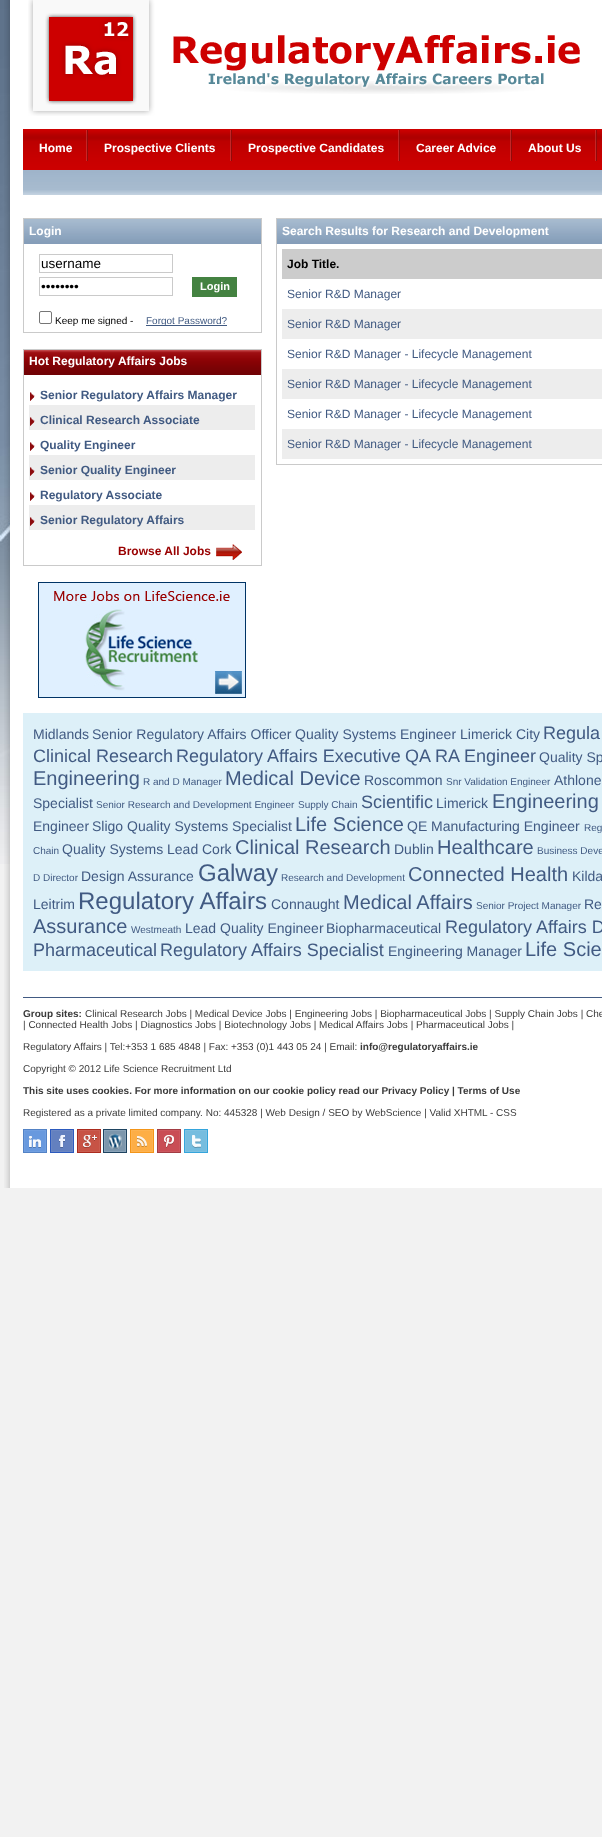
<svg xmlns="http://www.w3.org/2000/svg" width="602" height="1837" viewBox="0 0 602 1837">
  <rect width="100%" height="100%" fill="#f2f2f2"/>
  <image x="0" y="0" width="10" height="864" href="img1.png"/>
  <image x="4" y="0" width="598" height="1188" href="img2.png"/>
  <image x="28" y="0" width="552" height="116" href="img3.png"/>
  <image x="23" y="129" width="579" height="66" href="img4.png"/>
  <image x="86" y="130" width="2" height="31" href="img5.png"/>
  <text x="39" y="152" font-family="Liberation Sans" font-size="12" font-weight="bold" fill="#ffffff">Home</text>
  <image x="230" y="130" width="2" height="31" href="img5.png"/>
  <text x="104" y="152" font-family="Liberation Sans" font-size="12" font-weight="bold" fill="#ffffff">Prospective Clients</text>
  <image x="398" y="130" width="2" height="31" href="img5.png"/>
  <text x="248" y="152" font-family="Liberation Sans" font-size="12" font-weight="bold" fill="#ffffff">Prospective Candidates</text>
  <image x="510" y="130" width="2" height="31" href="img5.png"/>
  <text x="416" y="152" font-family="Liberation Sans" font-size="12" font-weight="bold" fill="#ffffff">Career Advice</text>
  <image x="595" y="130" width="2" height="31" href="img5.png"/>
  <text x="528" y="152" font-family="Liberation Sans" font-size="12" font-weight="bold" fill="#ffffff">About Us</text>
  <rect x="23.5" y="218.5" width="238" height="114" fill="none" stroke="#cacaca"/>
  <image x="24" y="219" width="237" height="25" href="img6.png"/>
  <text x="29" y="235" font-family="Liberation Sans" font-size="12" font-weight="bold" fill="#ffffff">Login</text>
  <rect x="39.5" y="254.5" width="133" height="18" fill="none" stroke="#cacaca"/>
  <text x="41" y="268" font-family="Liberation Sans" font-size="13.5" fill="#000000">username</text>
  <rect x="39.5" y="277.5" width="133" height="18" fill="none" stroke="#cacaca"/>
  <text x="41" y="291" font-family="Liberation Sans" font-size="13.5" fill="#000000">••••••••</text>
  <rect x="192" y="277" width="45" height="20" fill="#448241"/>
  <text x="200" y="290" font-family="Liberation Sans" font-size="11" font-weight="bold" fill="#ffffff">Login</text>
  <rect x="39.5" y="311.5" width="12" height="12" rx="1.5" fill="none" stroke="#767676"/>
  <text x="55" y="324" font-family="Liberation Sans" font-size="10" fill="#000000">Keep me signed -</text>
  <rect x="146" y="325" width="81" height="1" fill="#415a82"/>
  <text x="146" y="324" font-family="Liberation Sans" font-size="10" fill="#415a82">Forgot Password?</text>
  <rect x="23.5" y="349.5" width="238" height="216" fill="none" stroke="#cacaca"/>
  <image x="24" y="350" width="237" height="25" href="img7.png"/>
  <text x="29" y="365" font-family="Liberation Sans" font-size="12" font-weight="bold" fill="#ffffff">Hot Regulatory Affairs Jobs</text>
  <image x="30" y="392" width="5" height="9" href="img8.png"/>
  <text x="40" y="399" font-family="Liberation Sans" font-size="12" font-weight="bold" fill="#415a82">Senior Regulatory Affairs Manager</text>
  <rect x="29" y="405" width="226" height="25" fill="#ededed"/>
  <image x="30" y="417" width="5" height="9" href="img9.png"/>
  <text x="40" y="424" font-family="Liberation Sans" font-size="12" font-weight="bold" fill="#415a82">Clinical Research Associate</text>
  <image x="30" y="442" width="5" height="9" href="img8.png"/>
  <text x="40" y="449" font-family="Liberation Sans" font-size="12" font-weight="bold" fill="#415a82">Quality Engineer</text>
  <rect x="29" y="455" width="226" height="25" fill="#ededed"/>
  <image x="30" y="467" width="5" height="9" href="img9.png"/>
  <text x="40" y="474" font-family="Liberation Sans" font-size="12" font-weight="bold" fill="#415a82">Senior Quality Engineer</text>
  <image x="30" y="492" width="5" height="9" href="img8.png"/>
  <text x="40" y="499" font-family="Liberation Sans" font-size="12" font-weight="bold" fill="#415a82">Regulatory Associate</text>
  <rect x="29" y="505" width="226" height="25" fill="#ededed"/>
  <image x="30" y="517" width="5" height="9" href="img9.png"/>
  <text x="40" y="524" font-family="Liberation Sans" font-size="12" font-weight="bold" fill="#415a82">Senior Regulatory Affairs</text>
  <text x="118" y="555" font-family="Liberation Sans" font-size="12" font-weight="bold" fill="#990000">Browse All Jobs</text>
  <image x="216" y="544" width="26" height="16" href="img10.png"/>
  <image x="38" y="582" width="208" height="116" href="img11.png"/>
  <rect x="276.5" y="218.5" width="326" height="246" fill="none" stroke="#cacaca"/>
  <image x="277" y="219" width="325" height="25" href="img12.png"/>
  <text x="282" y="235" font-family="Liberation Sans" font-size="12" font-weight="bold" fill="#ffffff">Search Results for Research and Development</text>
  <rect x="282" y="249" width="320" height="30" fill="#cccccc"/>
  <text x="287" y="268" font-family="Liberation Sans" font-size="12" font-weight="bold" fill="#000000">Job Title.</text>
  <text x="287" y="298" font-family="Liberation Sans" font-size="12" fill="#415a82">Senior R&amp;D Manager</text>
  <rect x="282" y="309" width="320" height="30" fill="#ededed"/>
  <text x="287" y="328" font-family="Liberation Sans" font-size="12" fill="#415a82">Senior R&amp;D Manager</text>
  <text x="287" y="358" font-family="Liberation Sans" font-size="12" fill="#415a82">Senior R&amp;D Manager - Lifecycle Management</text>
  <rect x="282" y="369" width="320" height="30" fill="#ededed"/>
  <text x="287" y="388" font-family="Liberation Sans" font-size="12" fill="#415a82">Senior R&amp;D Manager - Lifecycle Management</text>
  <text x="287" y="418" font-family="Liberation Sans" font-size="12" fill="#415a82">Senior R&amp;D Manager - Lifecycle Management</text>
  <rect x="282" y="429" width="320" height="30" fill="#ededed"/>
  <text x="287" y="448" font-family="Liberation Sans" font-size="12" fill="#415a82">Senior R&amp;D Manager - Lifecycle Management</text>
  <rect x="23" y="713" width="579" height="258" fill="#ddf0f8"/>
  <text x="33" y="739" font-family="Liberation Sans" font-size="14" fill="#415a82">Midlands</text>
  <text x="92" y="739" font-family="Liberation Sans" font-size="14" fill="#415a82">Senior Regulatory Affairs Officer</text>
  <text x="295" y="739" font-family="Liberation Sans" font-size="14" fill="#415a82">Quality Systems Engineer</text>
  <text x="460" y="739" font-family="Liberation Sans" font-size="14" fill="#415a82">Limerick City</text>
  <text x="543" y="739" font-family="Liberation Sans" font-size="18" fill="#415a82">Regula</text>
  <text x="33" y="762" font-family="Liberation Sans" font-size="18" fill="#415a82">Clinical Research</text>
  <text x="176" y="762" font-family="Liberation Sans" font-size="18" fill="#415a82">Regulatory Affairs Executive</text>
  <text x="405" y="762" font-family="Liberation Sans" font-size="18" fill="#415a82">QA RA Engineer</text>
  <text x="539" y="762" font-family="Liberation Sans" font-size="14" fill="#415a82">Quality Sp</text>
  <text x="33" y="785" font-family="Liberation Sans" font-size="20" fill="#415a82">Engineering</text>
  <text x="143" y="785" font-family="Liberation Sans" font-size="10" fill="#415a82">R and D Manager</text>
  <text x="225" y="785" font-family="Liberation Sans" font-size="20" fill="#415a82">Medical Device</text>
  <text x="364" y="785" font-family="Liberation Sans" font-size="14" fill="#415a82">Roscommon</text>
  <text x="446" y="785" font-family="Liberation Sans" font-size="10" fill="#415a82">Snr Validation Engineer</text>
  <text x="554" y="785" font-family="Liberation Sans" font-size="14" fill="#415a82">Athlone</text>
  <text x="33" y="808" font-family="Liberation Sans" font-size="14" fill="#415a82">Specialist</text>
  <text x="96" y="808" font-family="Liberation Sans" font-size="10" fill="#415a82">Senior Research and Development Engineer</text>
  <text x="298" y="808" font-family="Liberation Sans" font-size="10" fill="#415a82">Supply Chain</text>
  <text x="361" y="808" font-family="Liberation Sans" font-size="18" fill="#415a82">Scientific</text>
  <text x="436" y="808" font-family="Liberation Sans" font-size="14" fill="#415a82">Limerick</text>
  <text x="492" y="808" font-family="Liberation Sans" font-size="20" fill="#415a82">Engineering</text>
  <text x="33" y="831" font-family="Liberation Sans" font-size="14" fill="#415a82">Engineer</text>
  <text x="92" y="831" font-family="Liberation Sans" font-size="14" fill="#415a82">Sligo</text>
  <text x="127" y="831" font-family="Liberation Sans" font-size="14" fill="#415a82">Quality Systems Specialist</text>
  <text x="295" y="831" font-family="Liberation Sans" font-size="20" fill="#415a82">Life Science</text>
  <text x="407" y="831" font-family="Liberation Sans" font-size="14" fill="#415a82">QE Manufacturing Engineer</text>
  <text x="584" y="831" font-family="Liberation Sans" font-size="10" fill="#415a82">Reg</text>
  <text x="33" y="854" font-family="Liberation Sans" font-size="10" fill="#415a82">Chain</text>
  <text x="62" y="854" font-family="Liberation Sans" font-size="14" fill="#415a82">Quality Systems Lead</text>
  <text x="202" y="854" font-family="Liberation Sans" font-size="14" fill="#415a82">Cork</text>
  <text x="235" y="854" font-family="Liberation Sans" font-size="20" fill="#415a82">Clinical Research</text>
  <text x="394" y="854" font-family="Liberation Sans" font-size="14" fill="#415a82">Dublin</text>
  <text x="437" y="854" font-family="Liberation Sans" font-size="20" fill="#415a82">Healthcare</text>
  <text x="537" y="854" font-family="Liberation Sans" font-size="10" fill="#415a82">Business Deve</text>
  <text x="33" y="881" font-family="Liberation Sans" font-size="10" fill="#415a82">D Director</text>
  <text x="81" y="881" font-family="Liberation Sans" font-size="14" fill="#415a82">Design Assurance</text>
  <text x="198" y="881" font-family="Liberation Sans" font-size="24" fill="#415a82">Galway</text>
  <text x="281" y="881" font-family="Liberation Sans" font-size="10" fill="#415a82">Research and Development</text>
  <text x="408" y="881" font-family="Liberation Sans" font-size="20" fill="#415a82">Connected Health</text>
  <text x="572" y="881" font-family="Liberation Sans" font-size="14" fill="#415a82">Kilda</text>
  <text x="33" y="909" font-family="Liberation Sans" font-size="14" fill="#415a82">Leitrim</text>
  <text x="78" y="909" font-family="Liberation Sans" font-size="24" fill="#415a82">Regulatory Affairs</text>
  <text x="271" y="909" font-family="Liberation Sans" font-size="14" fill="#415a82">Connaught</text>
  <text x="343" y="909" font-family="Liberation Sans" font-size="20" fill="#415a82">Medical Affairs</text>
  <text x="476" y="909" font-family="Liberation Sans" font-size="10" fill="#415a82">Senior Project Manager</text>
  <text x="584" y="909" font-family="Liberation Sans" font-size="14" fill="#415a82">Re</text>
  <text x="33" y="933" font-family="Liberation Sans" font-size="20" fill="#415a82">Assurance</text>
  <text x="131" y="933" font-family="Liberation Sans" font-size="10" fill="#415a82">Westmeath</text>
  <text x="185" y="933" font-family="Liberation Sans" font-size="14" fill="#415a82">Lead Quality Engineer</text>
  <text x="326" y="933" font-family="Liberation Sans" font-size="14" fill="#415a82">Biopharmaceutical</text>
  <text x="445" y="933" font-family="Liberation Sans" font-size="18" fill="#415a82">Regulatory Affairs D</text>
  <text x="33" y="956" font-family="Liberation Sans" font-size="18" fill="#415a82">Pharmaceutical</text>
  <text x="160" y="956" font-family="Liberation Sans" font-size="18" fill="#415a82">Regulatory Affairs Specialist</text>
  <text x="388" y="956" font-family="Liberation Sans" font-size="14" fill="#415a82">Engineering Manager</text>
  <text x="525" y="956" font-family="Liberation Sans" font-size="20" fill="#415a82">Life Scie</text>
  <rect x="23" y="997" width="579" height="1" fill="#415a82"/>
  <text x="23" y="1017" font-family="Liberation Sans" font-size="10" font-weight="bold" fill="#3b3b3b">Group sites:</text>
  <text x="85" y="1017" font-family="Liberation Sans" font-size="10" fill="#3b3b3b">Clinical Research Jobs | Medical Device Jobs | Engineering Jobs | Biopharmaceutical Jobs | Supply Chain Jobs | Che</text>
  <text x="23" y="1028" font-family="Liberation Sans" font-size="10" fill="#3b3b3b">| Connected Health Jobs | Diagnostics Jobs | Biotechnology Jobs | Medical Affairs Jobs | Pharmaceutical Jobs |</text>
  <text x="23" y="1050" font-family="Liberation Sans" font-size="10" fill="#3b3b3b">Regulatory Affairs | Tel:+353 1 685 4848 | Fax: +353 (0)1 443 05 24 | Email:</text>
  <text x="360" y="1050" font-family="Liberation Sans" font-size="10" font-weight="bold" fill="#3b3b3b">info@regulatoryaffairs.ie</text>
  <text x="23" y="1072" font-family="Liberation Sans" font-size="10" fill="#3b3b3b">Copyright © 2012 Life Science Recruitment Ltd</text>
  <text x="23" y="1094" font-family="Liberation Sans" font-size="10" font-weight="bold" fill="#3b3b3b">This site uses cookies. For more information on our cookie policy read our Privacy Policy | Terms of Use</text>
  <text x="23" y="1116" font-family="Liberation Sans" font-size="10" fill="#3b3b3b">Registered as a private limited company. No: 445328 | Web Design / SEO by WebScience | Valid XHTML</text>
  <text x="490" y="1116" font-family="Liberation Sans" font-size="10" fill="#3b3b3b">- CSS</text>
  <image x="23" y="1129" width="24" height="24" href="img13.png"/>
  <image x="50" y="1129" width="24" height="24" href="img14.png"/>
  <image x="77" y="1129" width="24" height="24" href="img15.png"/>
  <image x="103" y="1129" width="24" height="24" href="img16.png"/>
  <image x="130" y="1129" width="24" height="24" href="img17.png"/>
  <image x="157" y="1129" width="24" height="24" href="img18.png"/>
  <image x="184" y="1129" width="24" height="24" href="img19.png"/>
</svg>
